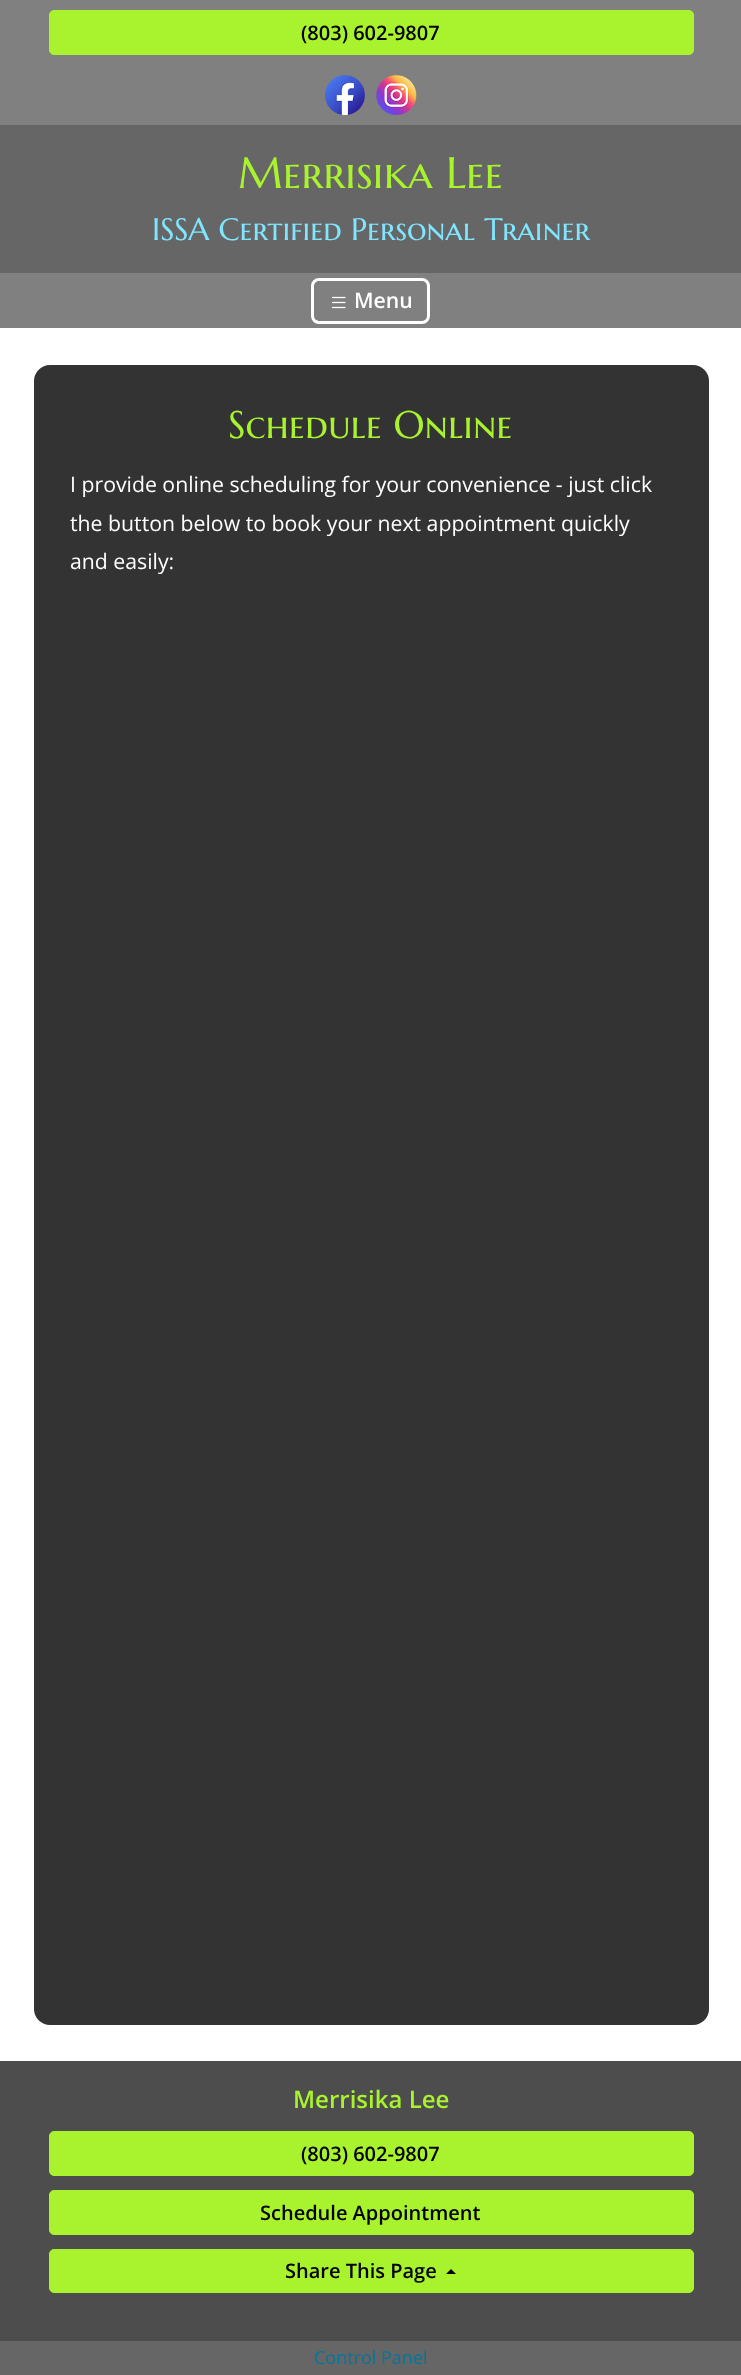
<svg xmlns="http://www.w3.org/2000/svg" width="741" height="2375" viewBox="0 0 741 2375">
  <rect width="100%" height="100%" fill="#ffffff"/>
  <rect x="0" y="0" width="741" height="125" fill="#808080"/>
  <rect x="49.5" y="10.5" width="644" height="44" rx="4.5" fill="#a9f32e" stroke="#a9f32e"/>
  <text x="301" y="40" font-family="Open Sans" font-size="20" font-weight="600" fill="#000000">(803) 602-9807</text>
  <image x="325" y="75" width="40" height="40" href="img1.png"/>
  <image x="376" y="75" width="41" height="40" href="img2.png"/>
  <rect x="0" y="125" width="741" height="148" fill="#666666"/>
  <text x="238" y="188" font-family="Marcellus SC" font-size="44" fill="#a9f32e">Merrisika Lee</text>
  <text x="152" y="240" font-family="Marcellus SC" font-size="31" fill="#80e6ff">ISSA Certified Personal Trainer</text>
  <rect x="0" y="273" width="741" height="55" fill="#808080"/>
  <rect x="312.5" y="279.5" width="116" height="43" rx="6.5" fill="none" stroke="#ffffff" stroke-width="3"/>
  <image x="331" y="296" width="15" height="13" href="img3.png"/>
  <text x="354" y="308" font-family="Open Sans" font-size="21.25" font-weight="600" fill="#ffffff">Menu</text>
  <rect x="34" y="365" width="675" height="1660" rx="16" fill="#333333"/>
  <text x="228" y="438" font-family="Marcellus SC" font-size="38.5" fill="#a9f32e">Schedule Online</text>
  <text x="70" y="492" font-family="Open Sans" font-size="21.25" fill="#ffffff">I provide online scheduling for your convenience - just click</text>
  <text x="70" y="531" font-family="Open Sans" font-size="21.25" fill="#ffffff">the button below to book your next appointment quickly</text>
  <text x="70" y="569" font-family="Open Sans" font-size="21.25" fill="#ffffff">and easily:</text>
  <rect x="0" y="2061" width="741" height="280" fill="#4d4d4d"/>
  <text x="293" y="2108" font-family="Open Sans" font-size="24" font-weight="600" fill="#a9f32e">Merrisika Lee</text>
  <rect x="49.5" y="2131.5" width="644" height="44" rx="4.5" fill="#a9f32e" stroke="#a9f32e"/>
  <text x="301" y="2161" font-family="Open Sans" font-size="20" font-weight="600" fill="#000000">(803) 602-9807</text>
  <rect x="49.5" y="2190.5" width="644" height="44" rx="4.5" fill="#a9f32e" stroke="#a9f32e"/>
  <text x="260" y="2220" font-family="Open Sans" font-size="20" font-weight="600" fill="#000000">Schedule Appointment</text>
  <rect x="49.5" y="2249.5" width="644" height="43" rx="4.5" fill="#a9f32e" stroke="#a9f32e"/>
  <text x="285" y="2278" font-family="Open Sans" font-size="20" font-weight="600" fill="#000000">Share This Page</text>
  <path d="M456 2274H446L451 2269Z" fill="#000000"/>
  <rect x="0" y="2341" width="741" height="34" fill="#666666"/>
  <text x="314" y="2364" font-family="Open Sans" font-size="18" fill="#01769e">Control Panel</text>
</svg>
